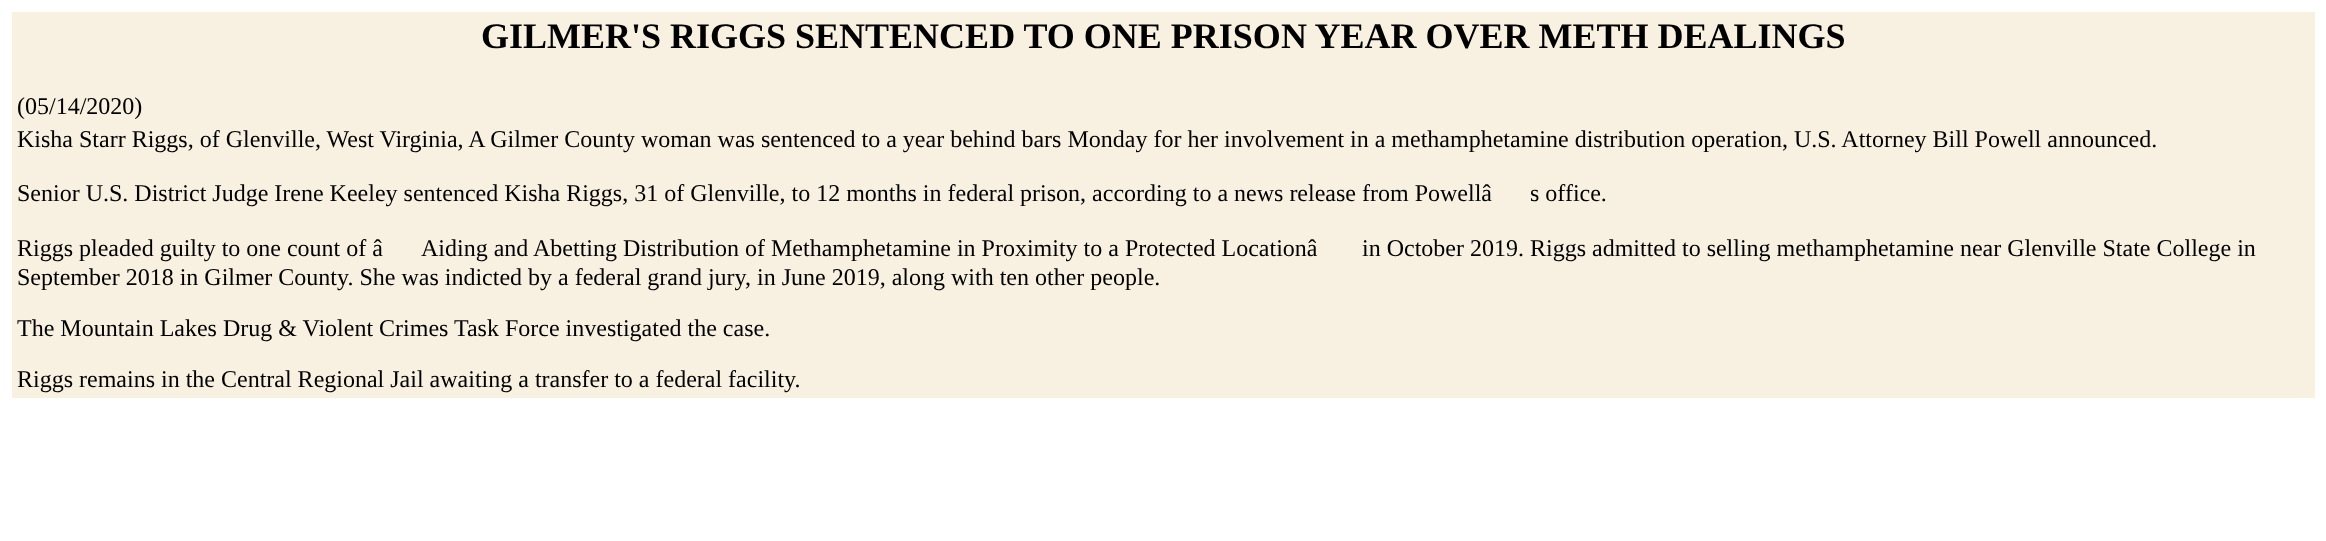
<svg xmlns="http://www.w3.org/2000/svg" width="2326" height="541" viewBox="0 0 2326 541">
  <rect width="100%" height="100%" fill="#ffffff"/>
  <rect x="12" y="12" width="2303" height="386" fill="#f8f0e0"/>
  <text x="481" y="48" font-family="Liberation Serif" font-size="36" font-weight="bold" fill="#000000">GILMER'S RIGGS SENTENCED TO ONE PRISON YEAR OVER METH DEALINGS</text>
  <text x="17" y="114" font-family="Liberation Serif" font-size="24" fill="#000000">(05/14/2020)</text>
  <text x="17" y="147" font-family="Liberation Serif" font-size="24" fill="#000000">Kisha Starr Riggs, of Glenville, West Virginia, A Gilmer County woman was sentenced to a year behind bars Monday for her involvement in a methamphetamine distribution operation, U.S. Attorney Bill Powell announced.</text>
  <text x="17" y="201" font-family="Liberation Serif" font-size="24" fill="#000000">Senior U.S. District Judge Irene Keeley sentenced Kisha Riggs, 31 of Glenville, to 12 months in federal prison, according to a news release from Powellâ</text>
  <text x="1530" y="201" font-family="Liberation Serif" font-size="24" fill="#000000">s office.</text>
  <text x="17" y="256" font-family="Liberation Serif" font-size="24" fill="#000000">Riggs pleaded guilty to one count of â</text>
  <text x="421" y="256" font-family="Liberation Serif" font-size="24" fill="#000000">Aiding and Abetting Distribution of Methamphetamine in Proximity to a Protected Locationâ</text>
  <text x="1362" y="256" font-family="Liberation Serif" font-size="24" fill="#000000">in October 2019. Riggs admitted to selling methamphetamine near Glenville State College in</text>
  <text x="17" y="285" font-family="Liberation Serif" font-size="24" fill="#000000">September 2018 in Gilmer County. She was indicted by a federal grand jury, in June 2019, along with ten other people.</text>
  <text x="17" y="336" font-family="Liberation Serif" font-size="24" fill="#000000">The Mountain Lakes Drug &amp; Violent Crimes Task Force investigated the case.</text>
  <text x="17" y="387" font-family="Liberation Serif" font-size="24" fill="#000000">Riggs remains in the Central Regional Jail awaiting a transfer to a federal facility.</text>
</svg>
